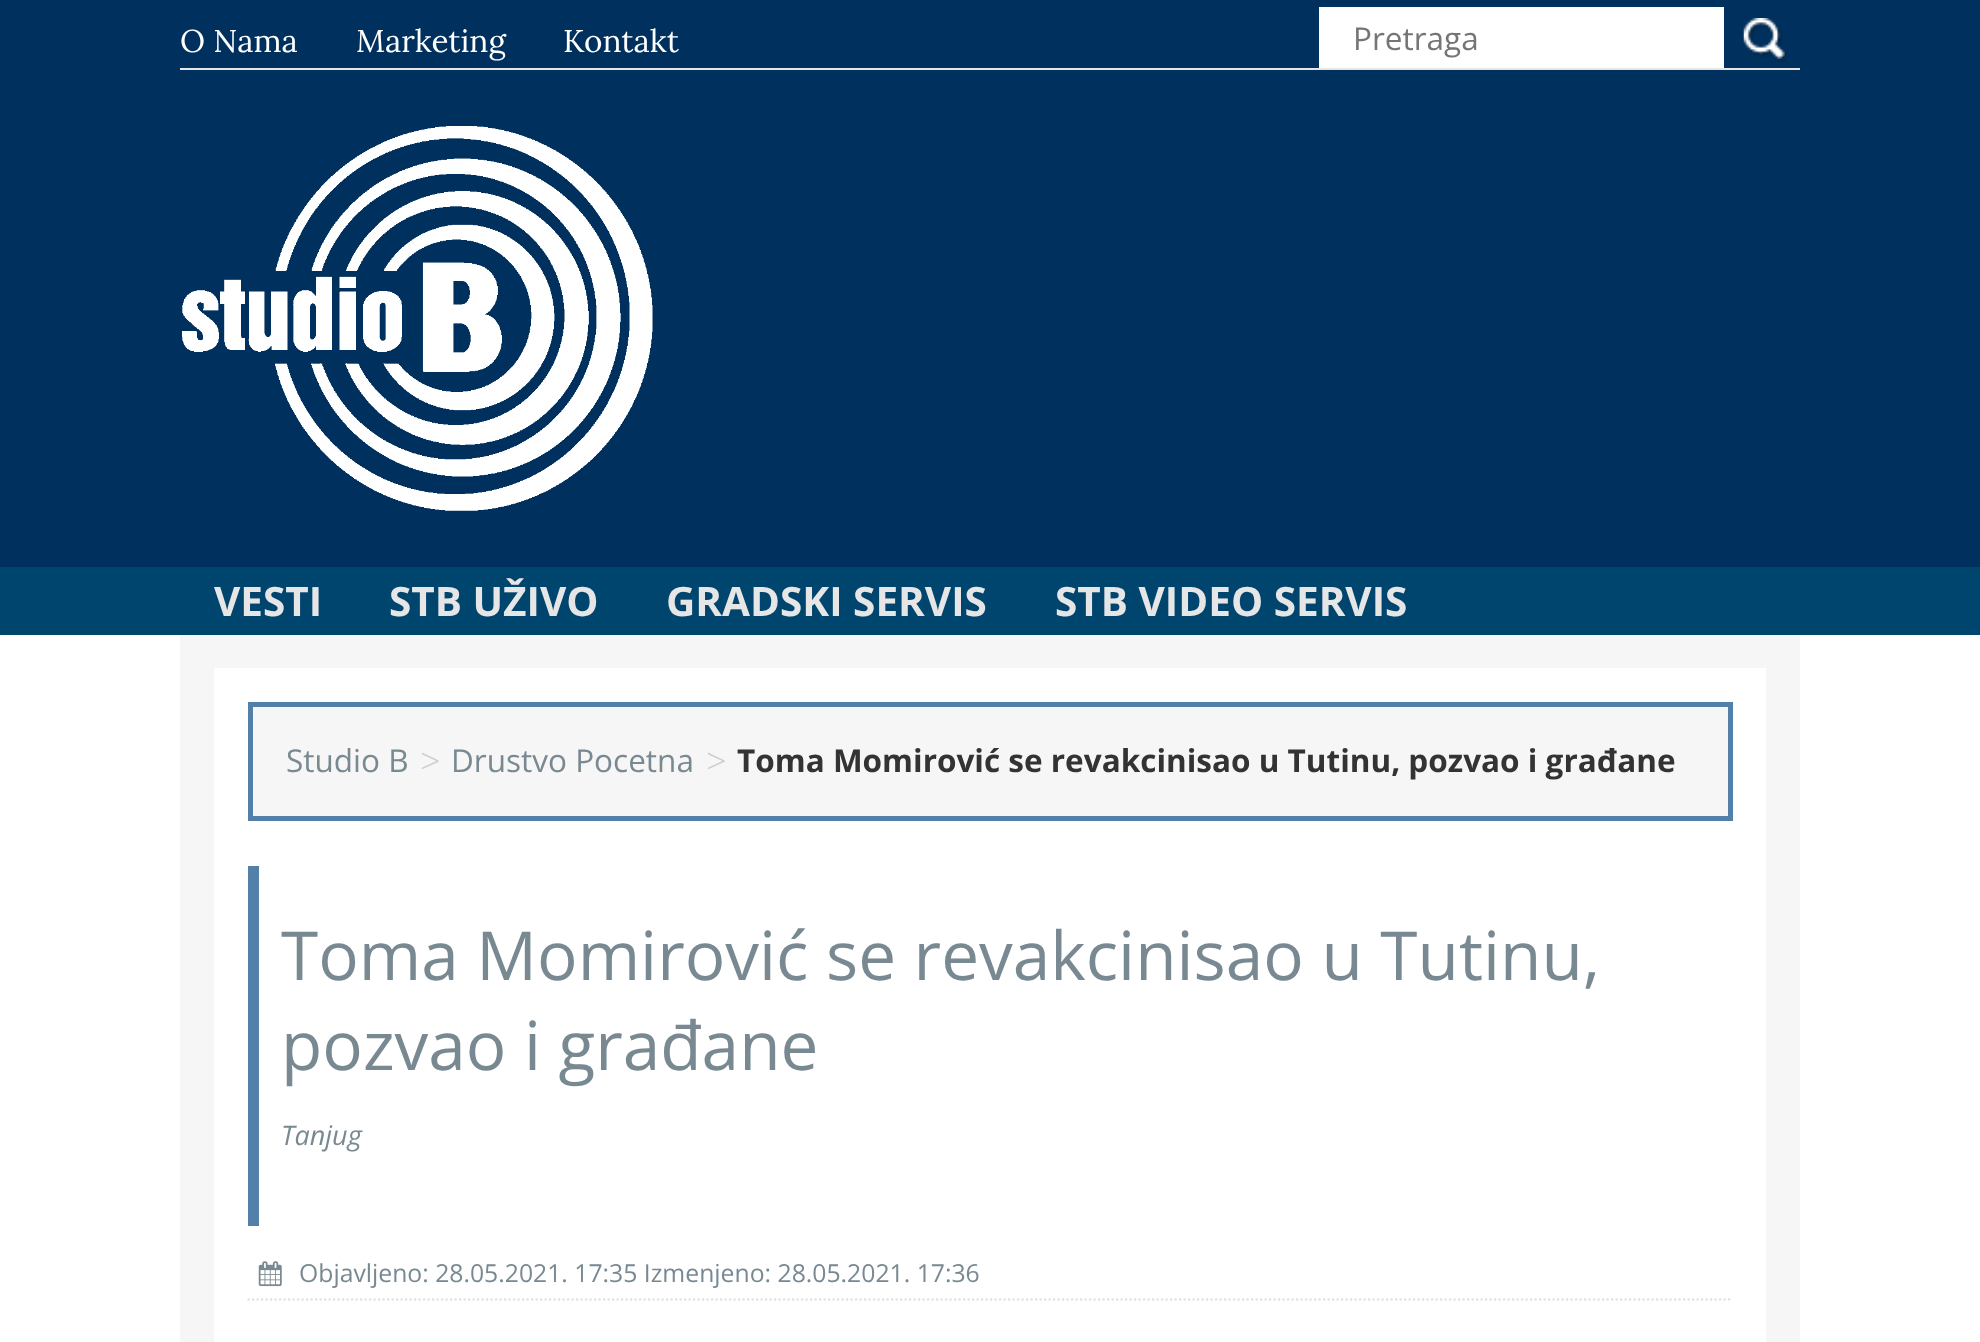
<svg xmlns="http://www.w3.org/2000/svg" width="1980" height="1342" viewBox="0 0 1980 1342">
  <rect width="100%" height="100%" fill="#ffffff"/>
  <rect x="0" y="0" width="1980" height="567" fill="#00305d"/>
  <rect x="180" y="68" width="1620" height="2" fill="#e6e6e6"/>
  <text x="180" y="52" font-family="Lora" font-size="31.5" fill="#ffffff">O Nama</text>
  <text x="356" y="52" font-family="Lora" font-size="31.5" fill="#ffffff">Marketing</text>
  <text x="563" y="52" font-family="Lora" font-size="31.5" fill="#ffffff">Kontakt</text>
  <rect x="1319" y="7" width="405" height="61" fill="#ffffff"/>
  <text x="1353" y="50" font-family="Open Sans" font-size="31.5" fill="#757575">Pretraga</text>
  <image x="1743" y="18" width="44" height="44" href="img1.png"/>
  <image x="182" y="126" width="471" height="385" href="img2.png"/>
  <rect x="0" y="567" width="1980" height="68" fill="#00456e"/>
  <text x="214" y="616" font-family="Open Sans" font-size="40.5" font-weight="bold" fill="#e6e6e6">VESTI</text>
  <text x="389" y="616" font-family="Open Sans" font-size="40.5" font-weight="bold" fill="#e6e6e6">STB UŽIVO</text>
  <text x="666" y="616" font-family="Open Sans" font-size="40.5" font-weight="bold" fill="#e6e6e6">GRADSKI SERVIS</text>
  <text x="1055" y="616" font-family="Open Sans" font-size="40.5" font-weight="bold" fill="#e6e6e6">STB VIDEO SERVIS</text>
  <rect x="180" y="635" width="1620" height="707" fill="#f6f6f6"/>
  <rect x="214" y="668" width="1552" height="674" fill="#ffffff"/>
  <rect x="250.5" y="704.5" width="1480" height="114" fill="#f6f6f6" stroke="#5280a9" stroke-width="5"/>
  <text x="286" y="772" font-family="Open Sans" font-size="31.5" fill="#798992">Studio B</text>
  <text x="420" y="774" font-family="Open Sans" font-size="36" font-weight="300" fill="#cccccc">&gt;</text>
  <text x="451" y="772" font-family="Open Sans" font-size="31.5" fill="#798992">Drustvo Pocetna</text>
  <text x="706" y="774" font-family="Open Sans" font-size="36" font-weight="300" fill="#cccccc">&gt;</text>
  <text x="737" y="772" font-family="Open Sans" font-size="31.5" font-weight="bold" fill="#333333">Toma Momirović se revakcinisao u Tutinu, pozvao i građane</text>
  <rect x="248" y="866" width="11" height="360" fill="#5280a9"/>
  <text x="281" y="980" font-family="Open Sans" font-size="67.5" fill="#798992">Toma Momirović se revakcinisao u Tutinu,</text>
  <text x="281" y="1070" font-family="Open Sans" font-size="67.5" fill="#798992">pozvao i građane</text>
  <text x="281" y="1145" font-family="Open Sans" font-size="27" font-style="italic" fill="#798992">Tanjug</text>
  <path d="M247.5 1299.5H1732.5" fill="none" stroke="#dedede" stroke-width="2.2" stroke-dasharray="2.25 2.25"/>
  <image x="258" y="1261" width="24" height="26" href="img3.png"/>
  <text x="299" y="1282" font-family="Open Sans" font-size="24.75" fill="#798992">Objavljeno: 28.05.2021. 17:35 Izmenjeno: 28.05.2021. 17:36</text>
</svg>
